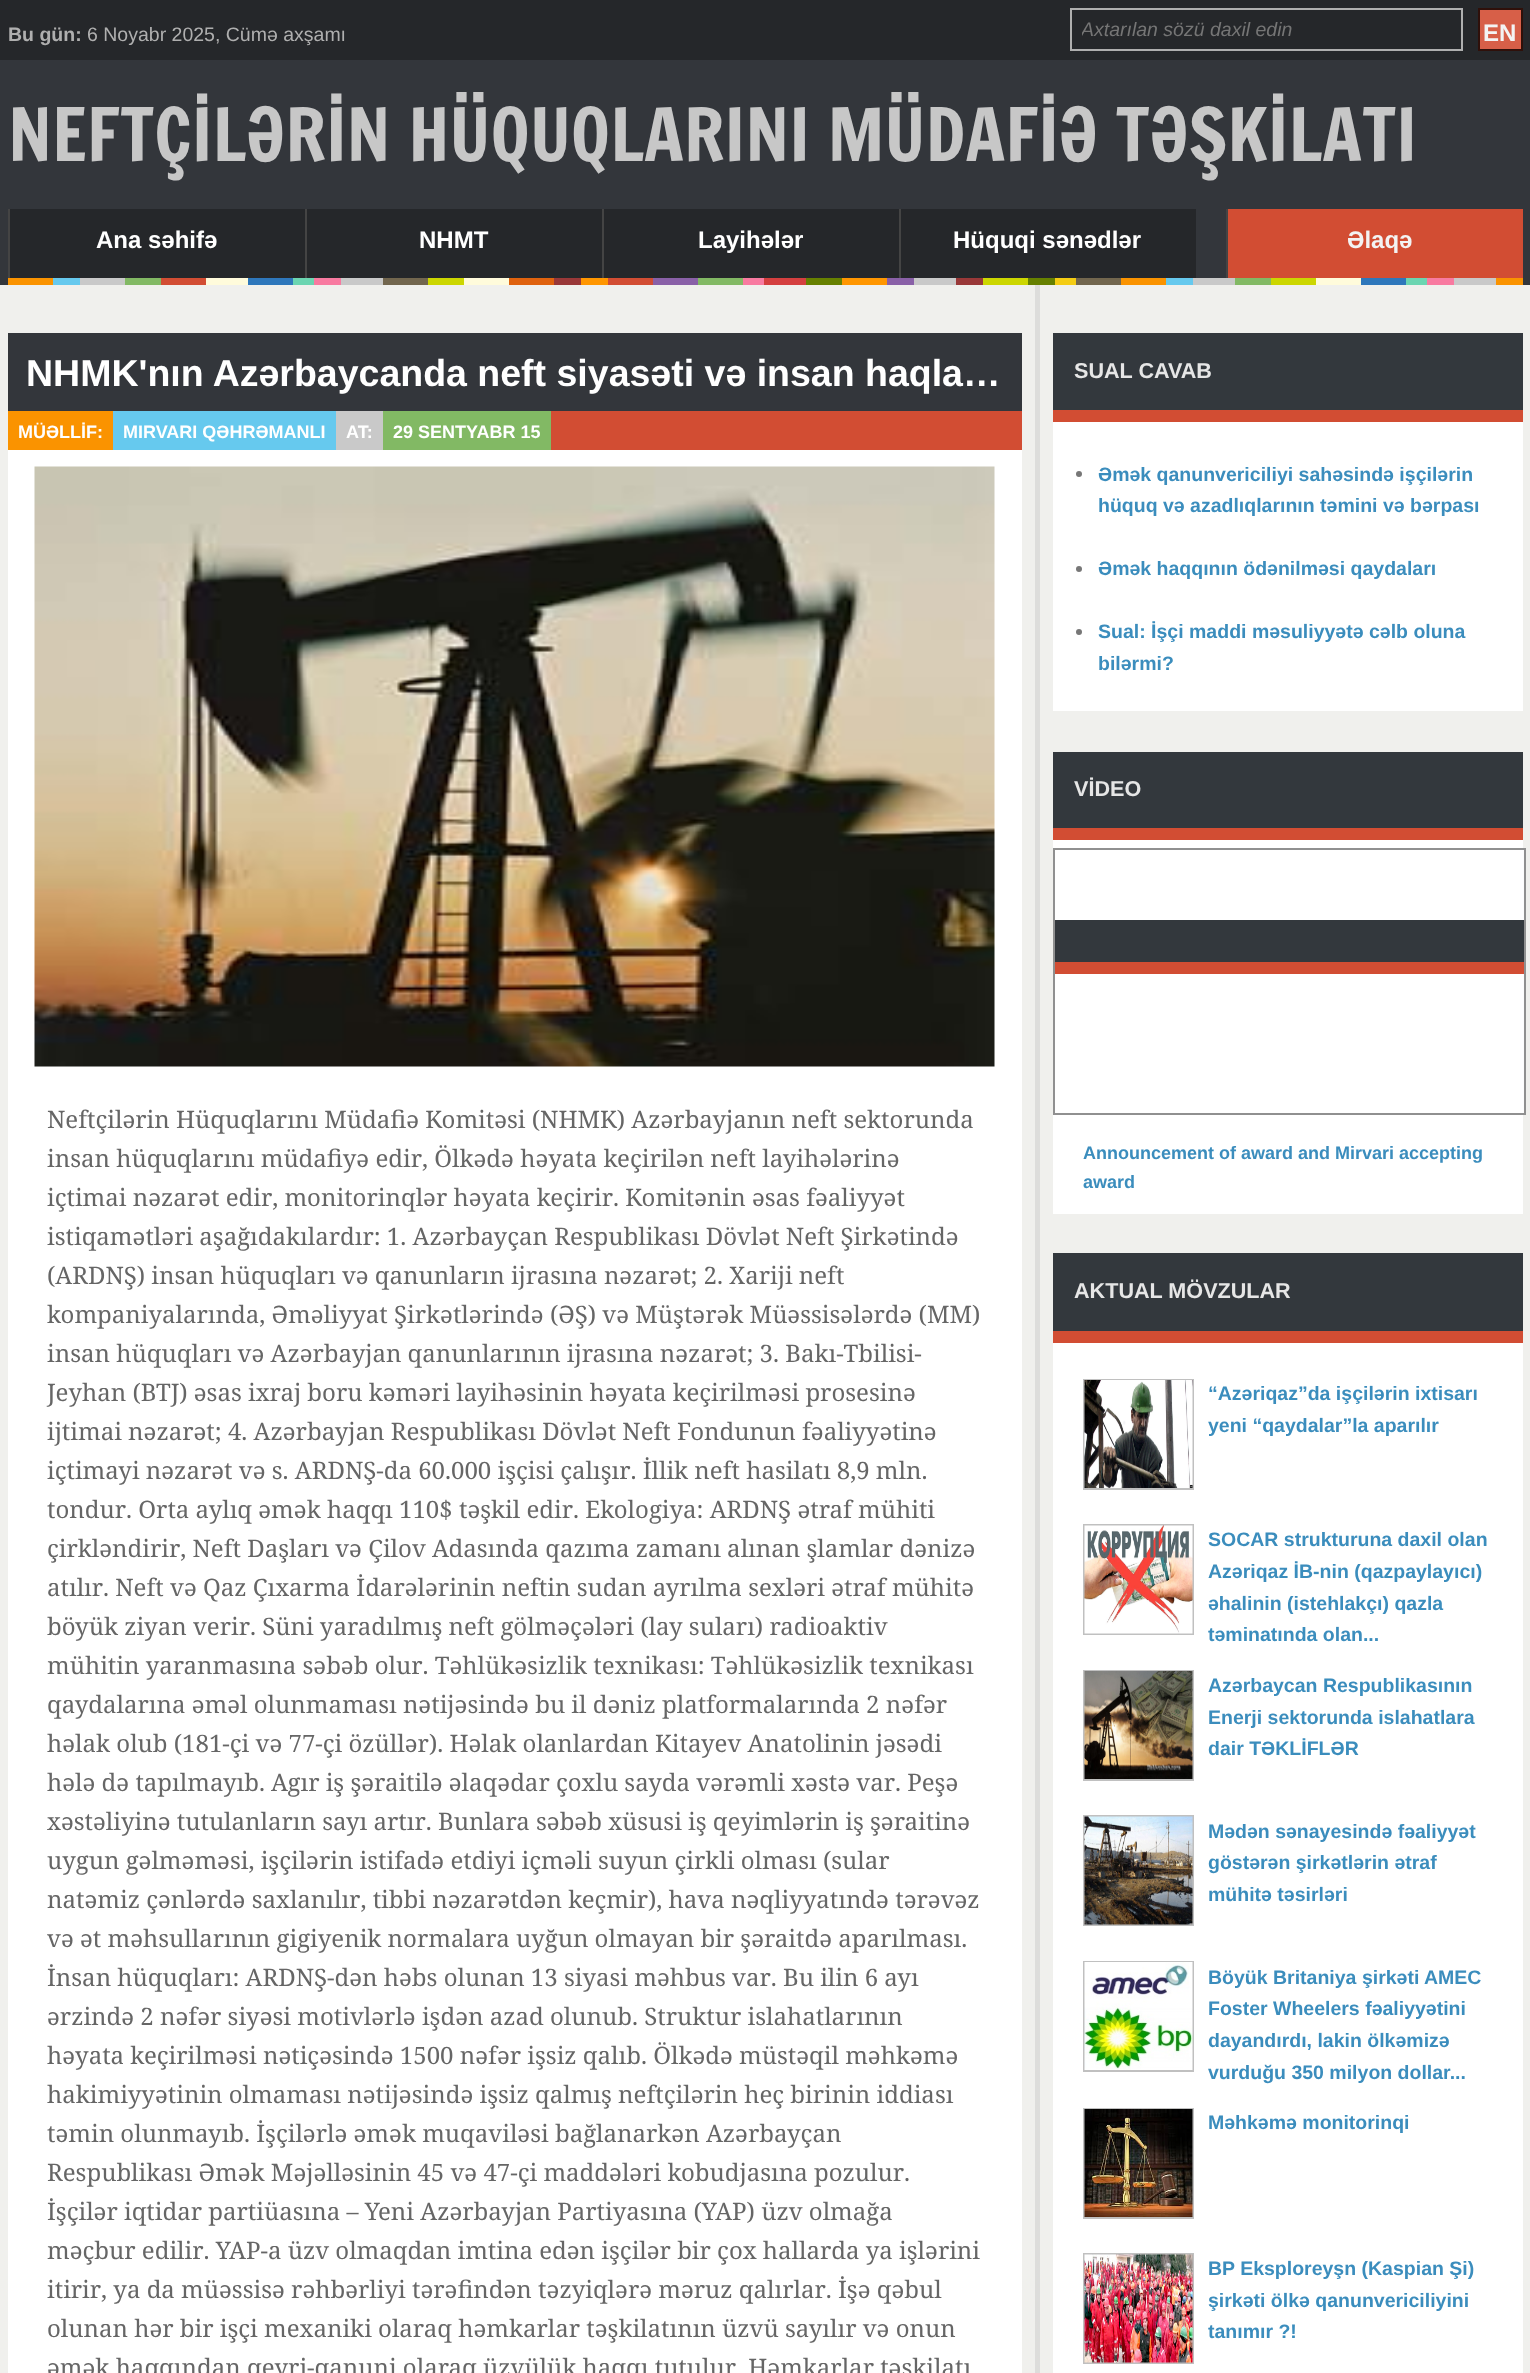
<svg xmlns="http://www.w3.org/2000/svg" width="1530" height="2373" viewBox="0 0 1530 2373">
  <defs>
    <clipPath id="clip1"><rect x="1082" y="18" width="375" height="23"/></clipPath>
    <clipPath id="clip2"><rect x="1208" y="1524" width="285" height="128"/></clipPath>
    <clipPath id="clip3"><rect x="1208" y="2253" width="285" height="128"/></clipPath>
  </defs>
  <rect width="100%" height="100%" fill="#f0f0ed"/>
  <rect x="0" y="60" width="1530" height="225" fill="#33363b"/>
  <rect x="0" y="0" width="1530" height="60" fill="#25272a"/>
  <text x="8" y="41" font-family="Liberation Sans" font-size="19.5" font-weight="bold" fill="#afafaf">Bu gün:</text>
  <text x="87" y="41" font-family="Liberation Sans" font-size="19.5" fill="#afafaf">6 Noyabr 2025, Cümə axşamı</text>
  <rect x="1071" y="9" width="391" height="41" fill="none" stroke="#afafaf" stroke-width="2"/>
  <g clip-path="url(#clip1)">
    <text x="1081" y="36" font-family="Liberation Sans" font-size="19.5" font-style="italic" fill="#757575">Axtarılan sözü daxil edin</text>
  </g>
  <rect x="1479" y="9" width="43" height="41" fill="#d75f48" stroke="#2f100a" stroke-width="2"/>
  <text x="1483" y="41" font-family="Liberation Sans" font-size="24" font-weight="bold" fill="#f3f3f3">EN</text>
  <text x="8" y="161" font-family="Francois One" font-size="72" fill="#c7c7c7">NEFTÇİLƏRİN HÜQUQLARINI MÜDAFİƏ TƏŞKİLATI</text>
  <rect x="10" y="209" width="295" height="69" fill="#25272a"/>
  <rect x="8" y="209" width="2" height="69" fill="#444444"/>
  <text x="96" y="248" font-family="Liberation Sans" font-size="24" font-weight="bold" fill="#ffffff">Ana səhifə</text>
  <rect x="307" y="209" width="295" height="69" fill="#25272a"/>
  <rect x="305" y="209" width="2" height="69" fill="#444444"/>
  <text x="419" y="248" font-family="Liberation Sans" font-size="24" font-weight="bold" fill="#ffffff">NHMT</text>
  <rect x="604" y="209" width="295" height="69" fill="#25272a"/>
  <rect x="602" y="209" width="2" height="69" fill="#444444"/>
  <text x="698" y="248" font-family="Liberation Sans" font-size="24" font-weight="bold" fill="#ffffff">Layihələr</text>
  <rect x="901" y="209" width="295" height="69" fill="#25272a"/>
  <rect x="899" y="209" width="2" height="69" fill="#444444"/>
  <text x="953" y="248" font-family="Liberation Sans" font-size="24" font-weight="bold" fill="#ffffff">Hüquqi sənədlər</text>
  <rect x="1228" y="209" width="295" height="69" fill="#d24d33"/>
  <rect x="1226" y="209" width="2" height="69" fill="#444444"/>
  <text x="1347" y="248" font-family="Liberation Sans" font-size="24" font-weight="bold" fill="#f3f3f3">Əlaqə</text>
  <rect x="8" y="278" width="1515" height="7" fill="#fa9300"/>
  <rect x="53" y="278" width="27" height="7" fill="#66c9ee"/>
  <rect x="80" y="278" width="45" height="7" fill="#c9c9c9"/>
  <rect x="125" y="278" width="36" height="7" fill="#82b964"/>
  <rect x="161" y="278" width="45" height="7" fill="#d24d33"/>
  <rect x="206" y="278" width="42" height="7" fill="#fffbdb"/>
  <rect x="248" y="278" width="45" height="7" fill="#2e77bb"/>
  <rect x="293" y="278" width="21" height="7" fill="#6bd5b1"/>
  <rect x="314" y="278" width="27" height="7" fill="#f87aa0"/>
  <rect x="341" y="278" width="42" height="7" fill="#c9c9c9"/>
  <rect x="383" y="278" width="45" height="7" fill="#72664e"/>
  <rect x="428" y="278" width="36" height="7" fill="#ccd600"/>
  <rect x="464" y="278" width="45" height="7" fill="#fffbdb"/>
  <rect x="509" y="278" width="45" height="7" fill="#df620e"/>
  <rect x="554" y="278" width="27" height="7" fill="#993838"/>
  <rect x="581" y="278" width="27" height="7" fill="#ff9600"/>
  <rect x="608" y="278" width="45" height="7" fill="#d24d33"/>
  <rect x="653" y="278" width="45" height="7" fill="#8960a7"/>
  <rect x="698" y="278" width="45" height="7" fill="#82b964"/>
  <rect x="743" y="278" width="21" height="7" fill="#f87aa0"/>
  <rect x="764" y="278" width="42" height="7" fill="#d43f3f"/>
  <rect x="806" y="278" width="36" height="7" fill="#668000"/>
  <rect x="842" y="278" width="45" height="7" fill="#ff9600"/>
  <rect x="887" y="278" width="27" height="7" fill="#8960a7"/>
  <rect x="914" y="278" width="42" height="7" fill="#c9c9c9"/>
  <rect x="956" y="278" width="27" height="7" fill="#993838"/>
  <rect x="983" y="278" width="45" height="7" fill="#ccd600"/>
  <rect x="1028" y="278" width="27" height="7" fill="#668000"/>
  <rect x="1055" y="278" width="21" height="7" fill="#f4cc13"/>
  <rect x="1076" y="278" width="45" height="7" fill="#72664e"/>
  <rect x="1166" y="278" width="27" height="7" fill="#66c9ee"/>
  <rect x="1193" y="278" width="42" height="7" fill="#c9c9c9"/>
  <rect x="1235" y="278" width="36" height="7" fill="#82b964"/>
  <rect x="1271" y="278" width="45" height="7" fill="#ccd600"/>
  <rect x="1316" y="278" width="45" height="7" fill="#fffbdb"/>
  <rect x="1361" y="278" width="45" height="7" fill="#2e77bb"/>
  <rect x="1406" y="278" width="21" height="7" fill="#6bd5b1"/>
  <rect x="1427" y="278" width="27" height="7" fill="#f87aa0"/>
  <rect x="1454" y="278" width="42" height="7" fill="#c9c9c9"/>
  <rect x="1035" y="285" width="5" height="2088" fill="#dddddb"/>
  <rect x="8" y="450" width="1014" height="1923" fill="#ffffff"/>
  <rect x="8" y="333" width="1014" height="78" fill="#33363b"/>
  <text x="26" y="386" font-family="Liberation Sans" font-size="37.5" font-weight="bold" fill="#ffffff">NHMK'nın Azərbaycanda neft siyasəti və insan haqla…</text>
  <rect x="551" y="411" width="471" height="39" fill="#d24d33"/>
  <rect x="8" y="411" width="105" height="39" fill="#fa9300"/>
  <text x="18" y="438" font-family="Liberation Sans" font-size="18" font-weight="bold" fill="#ffffff">MÜƏLLİF:</text>
  <rect x="113" y="411" width="223" height="39" fill="#66c9ee"/>
  <text x="123" y="438" font-family="Liberation Sans" font-size="18" font-weight="bold" fill="#ffffff">MIRVARI QƏHRƏMANLI</text>
  <rect x="336" y="411" width="47" height="39" fill="#c9c9c9"/>
  <text x="346" y="438" font-family="Liberation Sans" font-size="18" font-weight="bold" fill="#ffffff">AT:</text>
  <rect x="383" y="411" width="168" height="39" fill="#82b964"/>
  <text x="393" y="438" font-family="Liberation Sans" font-size="18" font-weight="bold" fill="#ffffff">29 SENTYABR 15</text>
  <image x="34" y="466" width="961" height="601" href="img1.png"/>
  <text x="47" y="1128" font-family="Noto Serif" font-size="24" fill="#666666">Neftçilərin Hüquqlarını Müdafiə Komitəsi (NHMK) Azərbayjanın neft sektorunda</text>
  <text x="47" y="1167" font-family="Noto Serif" font-size="24" fill="#666666">insan hüquqlarını müdafiyə edir, Ölkədə həyata keçirilən neft layihələrinə</text>
  <text x="47" y="1206" font-family="Noto Serif" font-size="24" fill="#666666">içtimai nəzarət edir, monitorinqlər həyata keçirir. Komitənin əsas fəaliyyət</text>
  <text x="47" y="1245" font-family="Noto Serif" font-size="24" fill="#666666">istiqamətləri aşağıdakılardır: 1. Azərbayçan Respublikası Dövlət Neft Şirkətində</text>
  <text x="47" y="1284" font-family="Noto Serif" font-size="24" fill="#666666">(ARDNŞ) insan hüquqları və qanunların ijrasına nəzarət; 2. Xariji neft</text>
  <text x="47" y="1323" font-family="Noto Serif" font-size="24" fill="#666666">kompaniyalarında, Əməliyyat Şirkətlərində (ƏŞ) və Müştərək Müəssisələrdə (MM)</text>
  <text x="47" y="1362" font-family="Noto Serif" font-size="24" fill="#666666">insan hüquqları və Azərbayjan qanunlarının ijrasına nəzarət; 3. Bakı-Tbilisi-</text>
  <text x="47" y="1401" font-family="Noto Serif" font-size="24" fill="#666666">Jeyhan (BTJ) əsas ixraj boru kəməri layihəsinin həyata keçirilməsi prosesinə</text>
  <text x="47" y="1440" font-family="Noto Serif" font-size="24" fill="#666666">ijtimai nəzarət; 4. Azərbayjan Respublikası Dövlət Neft Fondunun fəaliyyətinə</text>
  <text x="47" y="1479" font-family="Noto Serif" font-size="24" fill="#666666">içtimayi nəzarət və s. ARDNŞ-da 60.000 işçisi çalışır. İllik neft hasilatı 8,9 mln.</text>
  <text x="47" y="1518" font-family="Noto Serif" font-size="24" fill="#666666">tondur. Orta aylıq əmək haqqı 110$ təşkil edir. Ekologiya: ARDNŞ ətraf mühiti</text>
  <text x="47" y="1557" font-family="Noto Serif" font-size="24" fill="#666666">çirkləndirir, Neft Daşları və Çilov Adasında qazıma zamanı alınan şlamlar dənizə</text>
  <text x="47" y="1596" font-family="Noto Serif" font-size="24" fill="#666666">atılır. Neft və Qaz Çıxarma İdarələrinin neftin sudan ayrılma sexləri ətraf mühitə</text>
  <text x="47" y="1635" font-family="Noto Serif" font-size="24" fill="#666666">böyük ziyan verir. Süni yaradılmış neft gölməçələri (lay suları) radioaktiv</text>
  <text x="47" y="1674" font-family="Noto Serif" font-size="24" fill="#666666">mühitin yaranmasına səbəb olur. Təhlükəsizlik texnikası: Təhlükəsizlik texnikası</text>
  <text x="47" y="1713" font-family="Noto Serif" font-size="24" fill="#666666">qaydalarına əməl olunmaması nətijəsində bu il dəniz platformalarında 2 nəfər</text>
  <text x="47" y="1752" font-family="Noto Serif" font-size="24" fill="#666666">həlak olub (181-çi və 77-çi özüllər). Həlak olanlardan Kitayev Anatolinin jəsədi</text>
  <text x="47" y="1791" font-family="Noto Serif" font-size="24" fill="#666666">hələ də tapılmayıb. Agır iş şəraitilə əlaqədar çoxlu sayda vərəmli xəstə var. Peşə</text>
  <text x="47" y="1830" font-family="Noto Serif" font-size="24" fill="#666666">xəstəliyinə tutulanların sayı artır. Bunlara səbəb xüsusi iş qeyimlərin iş şəraitinə</text>
  <text x="47" y="1869" font-family="Noto Serif" font-size="24" fill="#666666">uygun gəlməməsi, işçilərin istifadə etdiyi içməli suyun çirkli olması (sular</text>
  <text x="47" y="1908" font-family="Noto Serif" font-size="24" fill="#666666">natəmiz çənlərdə saxlanılır, tibbi nəzarətdən keçmir), hava nəqliyyatındə tərəvəz</text>
  <text x="47" y="1947" font-family="Noto Serif" font-size="24" fill="#666666">və ət məhsullarının gigiyenik normalara uyğun olmayan bir şəraitdə aparılması.</text>
  <text x="47" y="1986" font-family="Noto Serif" font-size="24" fill="#666666">İnsan hüquqları: ARDNŞ-dən həbs olunan 13 siyasi məhbus var. Bu ilin 6 ayı</text>
  <text x="47" y="2025" font-family="Noto Serif" font-size="24" fill="#666666">ərzində 2 nəfər siyəsi motivlərlə işdən azad olunub. Struktur islahatlarının</text>
  <text x="47" y="2064" font-family="Noto Serif" font-size="24" fill="#666666">həyata keçirilməsi nətiçəsində 1500 nəfər işsiz qalıb. Ölkədə müstəqil məhkəmə</text>
  <text x="47" y="2103" font-family="Noto Serif" font-size="24" fill="#666666">hakimiyyətinin olmaması nətijəsində işsiz qalmış neftçilərin heç birinin iddiası</text>
  <text x="47" y="2142" font-family="Noto Serif" font-size="24" fill="#666666">təmin olunmayıb. İşçilərlə əmək muqaviləsi bağlanarkən Azərbayçan</text>
  <text x="47" y="2181" font-family="Noto Serif" font-size="24" fill="#666666">Respublikası Əmək Məjəlləsinin 45 və 47-çi maddələri kobudjasına pozulur.</text>
  <text x="47" y="2220" font-family="Noto Serif" font-size="24" fill="#666666">İşçilər iqtidar partiüasına – Yeni Azərbayjan Partiyasına (YAP) üzv olmağa</text>
  <text x="47" y="2259" font-family="Noto Serif" font-size="24" fill="#666666">məçbur edilir. YAP-a üzv olmaqdan imtina edən işçilər bir çox hallarda ya işlərini</text>
  <text x="47" y="2298" font-family="Noto Serif" font-size="24" fill="#666666">itirir, ya da müəssisə rəhbərliyi tərəfindən təzyiqlərə məruz qalırlar. İşə qəbul</text>
  <text x="47" y="2337" font-family="Noto Serif" font-size="24" fill="#666666">olunan hər bir işçi mexaniki olaraq həmkarlar təşkilatının üzvü sayılır və onun</text>
  <text x="47" y="2376" font-family="Noto Serif" font-size="24" fill="#666666">əmək haqqından qeyri-qanuni olaraq üzvülük haqqı tutulur. Həmkarlar təşkilatı</text>
  <rect x="1053" y="422" width="470" height="289" fill="#ffffff"/>
  <rect x="1053" y="333" width="470" height="77" fill="#33383d"/>
  <rect x="1053" y="410" width="470" height="12" fill="#d24d33"/>
  <text x="1074" y="378" font-family="Liberation Sans" font-size="21.6" font-weight="bold" fill="#e6e6e6">SUAL CAVAB</text>
  <circle cx="1079" cy="474" r="3" fill="#777777"/>
  <text x="1098" y="481" font-family="Liberation Sans" font-size="19.5" font-weight="bold" fill="#3b8dbd">Əmək qanunvericiliyi sahəsində işçilərin</text>
  <text x="1098" y="512" font-family="Liberation Sans" font-size="19.5" font-weight="bold" fill="#3b8dbd">hüquq və azadlıqlarının təmini və bərpası</text>
  <circle cx="1079" cy="569" r="3" fill="#777777"/>
  <text x="1098" y="575" font-family="Liberation Sans" font-size="19.5" font-weight="bold" fill="#3b8dbd">Əmək haqqının ödənilməsi qaydaları</text>
  <circle cx="1079" cy="632" r="3" fill="#777777"/>
  <text x="1098" y="638" font-family="Liberation Sans" font-size="19.5" font-weight="bold" fill="#3b8dbd">Sual: İşçi maddi məsuliyyətə cəlb oluna</text>
  <text x="1098" y="670" font-family="Liberation Sans" font-size="19.5" font-weight="bold" fill="#3b8dbd">bilərmi?</text>
  <rect x="1053" y="840" width="470" height="374" fill="#ffffff"/>
  <rect x="1053" y="752" width="470" height="76" fill="#33383d"/>
  <rect x="1053" y="828" width="470" height="12" fill="#d24d33"/>
  <text x="1074" y="796" font-family="Liberation Sans" font-size="21.6" font-weight="bold" fill="#e6e6e6">VİDEO</text>
  <rect x="1523" y="850" width="1" height="263" fill="#fdfdfd"/>
  <rect x="1054" y="849" width="471" height="265" fill="none" stroke="#909090" stroke-width="2"/>
  <rect x="1055" y="920" width="469" height="42" fill="#33383d"/>
  <rect x="1055" y="962" width="469" height="12" fill="#d24d33"/>
  <text x="1083" y="1159" font-family="Liberation Sans" font-size="18" font-weight="bold" fill="#3b8dbd">Announcement of award and Mirvari accepting</text>
  <text x="1083" y="1188" font-family="Liberation Sans" font-size="18" font-weight="bold" fill="#3b8dbd">award</text>
  <rect x="1053" y="1343" width="470" height="1030" fill="#ffffff"/>
  <rect x="1053" y="1253" width="470" height="78" fill="#33383d"/>
  <rect x="1053" y="1331" width="470" height="12" fill="#d24d33"/>
  <text x="1074" y="1298" font-family="Liberation Sans" font-size="21.6" font-weight="bold" fill="#e6e6e6">AKTUAL MÖVZULAR</text>
  <rect x="1084" y="1380" width="109" height="109" fill="none" stroke="#c0c0c0" stroke-width="2"/>
  <image x="1084" y="1380" width="109" height="108" href="img2.png"/>
  <text x="1208" y="1400" font-family="Liberation Sans" font-size="19.5" font-weight="bold" fill="#3b8dbd">“Azəriqaz”da işçilərin ixtisarı</text>
  <text x="1208" y="1432" font-family="Liberation Sans" font-size="19.5" font-weight="bold" fill="#3b8dbd">yeni “qaydalar”la aparılır</text>
  <rect x="1084" y="1525" width="109" height="109" fill="none" stroke="#c0c0c0" stroke-width="2"/>
  <image x="1084" y="1525" width="109" height="109" href="img3.png"/>
  <text x="1208" y="1546" font-family="Liberation Sans" font-size="19.5" font-weight="bold" fill="#3b8dbd">SOCAR strukturuna daxil olan</text>
  <text x="1208" y="1578" font-family="Liberation Sans" font-size="19.5" font-weight="bold" fill="#3b8dbd">Azəriqaz İB-nin (qazpaylayıcı)</text>
  <text x="1208" y="1610" font-family="Liberation Sans" font-size="19.5" font-weight="bold" fill="#3b8dbd">əhalinin (istehlakçı) qazla</text>
  <g clip-path="url(#clip2)">
    <text x="1208" y="1641" font-family="Liberation Sans" font-size="19.5" font-weight="bold" fill="#3b8dbd">təminatında olan...</text>
  </g>
  <rect x="1084" y="1671" width="109" height="109" fill="none" stroke="#c0c0c0" stroke-width="2"/>
  <image x="1084" y="1671" width="109" height="108" href="img4.png"/>
  <text x="1208" y="1692" font-family="Liberation Sans" font-size="19.5" font-weight="bold" fill="#3b8dbd">Azərbaycan Respublikasının</text>
  <text x="1208" y="1724" font-family="Liberation Sans" font-size="19.5" font-weight="bold" fill="#3b8dbd">Enerji sektorunda islahatlara</text>
  <text x="1208" y="1755" font-family="Liberation Sans" font-size="19.5" font-weight="bold" fill="#3b8dbd">dair TƏKLİFLƏR</text>
  <rect x="1084" y="1816" width="109" height="109" fill="none" stroke="#c0c0c0" stroke-width="2"/>
  <image x="1084" y="1816" width="109" height="109" href="img5.png"/>
  <text x="1208" y="1838" font-family="Liberation Sans" font-size="19.5" font-weight="bold" fill="#3b8dbd">Mədən sənayesində fəaliyyət</text>
  <text x="1208" y="1869" font-family="Liberation Sans" font-size="19.5" font-weight="bold" fill="#3b8dbd">göstərən şirkətlərin ətraf</text>
  <text x="1208" y="1901" font-family="Liberation Sans" font-size="19.5" font-weight="bold" fill="#3b8dbd">mühitə təsirləri</text>
  <rect x="1084" y="1962" width="109" height="109" fill="none" stroke="#c0c0c0" stroke-width="2"/>
  <image x="1084" y="1962" width="109" height="108" href="img6.png"/>
  <text x="1208" y="1984" font-family="Liberation Sans" font-size="19.5" font-weight="bold" fill="#3b8dbd">Böyük Britaniya şirkəti AMEC</text>
  <text x="1208" y="2015" font-family="Liberation Sans" font-size="19.5" font-weight="bold" fill="#3b8dbd">Foster Wheelers fəaliyyətini</text>
  <text x="1208" y="2047" font-family="Liberation Sans" font-size="19.5" font-weight="bold" fill="#3b8dbd">dayandırdı, lakin ölkəmizə</text>
  <text x="1208" y="2079" font-family="Liberation Sans" font-size="19.5" font-weight="bold" fill="#3b8dbd">vurduğu 350 milyon dollar...</text>
  <rect x="1084" y="2109" width="109" height="109" fill="none" stroke="#c0c0c0" stroke-width="2"/>
  <image x="1084" y="2109" width="109" height="108" href="img7.png"/>
  <text x="1208" y="2129" font-family="Liberation Sans" font-size="19.5" font-weight="bold" fill="#3b8dbd">Məhkəmə monitorinqi</text>
  <rect x="1084" y="2254" width="109" height="109" fill="none" stroke="#c0c0c0" stroke-width="2"/>
  <image x="1084" y="2254" width="109" height="109" href="img8.png"/>
  <text x="1208" y="2275" font-family="Liberation Sans" font-size="19.5" font-weight="bold" fill="#3b8dbd">BP Eksploreyşn (Kaspian Şi)</text>
  <text x="1208" y="2307" font-family="Liberation Sans" font-size="19.5" font-weight="bold" fill="#3b8dbd">şirkəti ölkə qanunvericiliyini</text>
  <g clip-path="url(#clip3)">
    <text x="1208" y="2338" font-family="Liberation Sans" font-size="19.5" font-weight="bold" fill="#3b8dbd">tanımır ?!</text>
  </g>
</svg>
